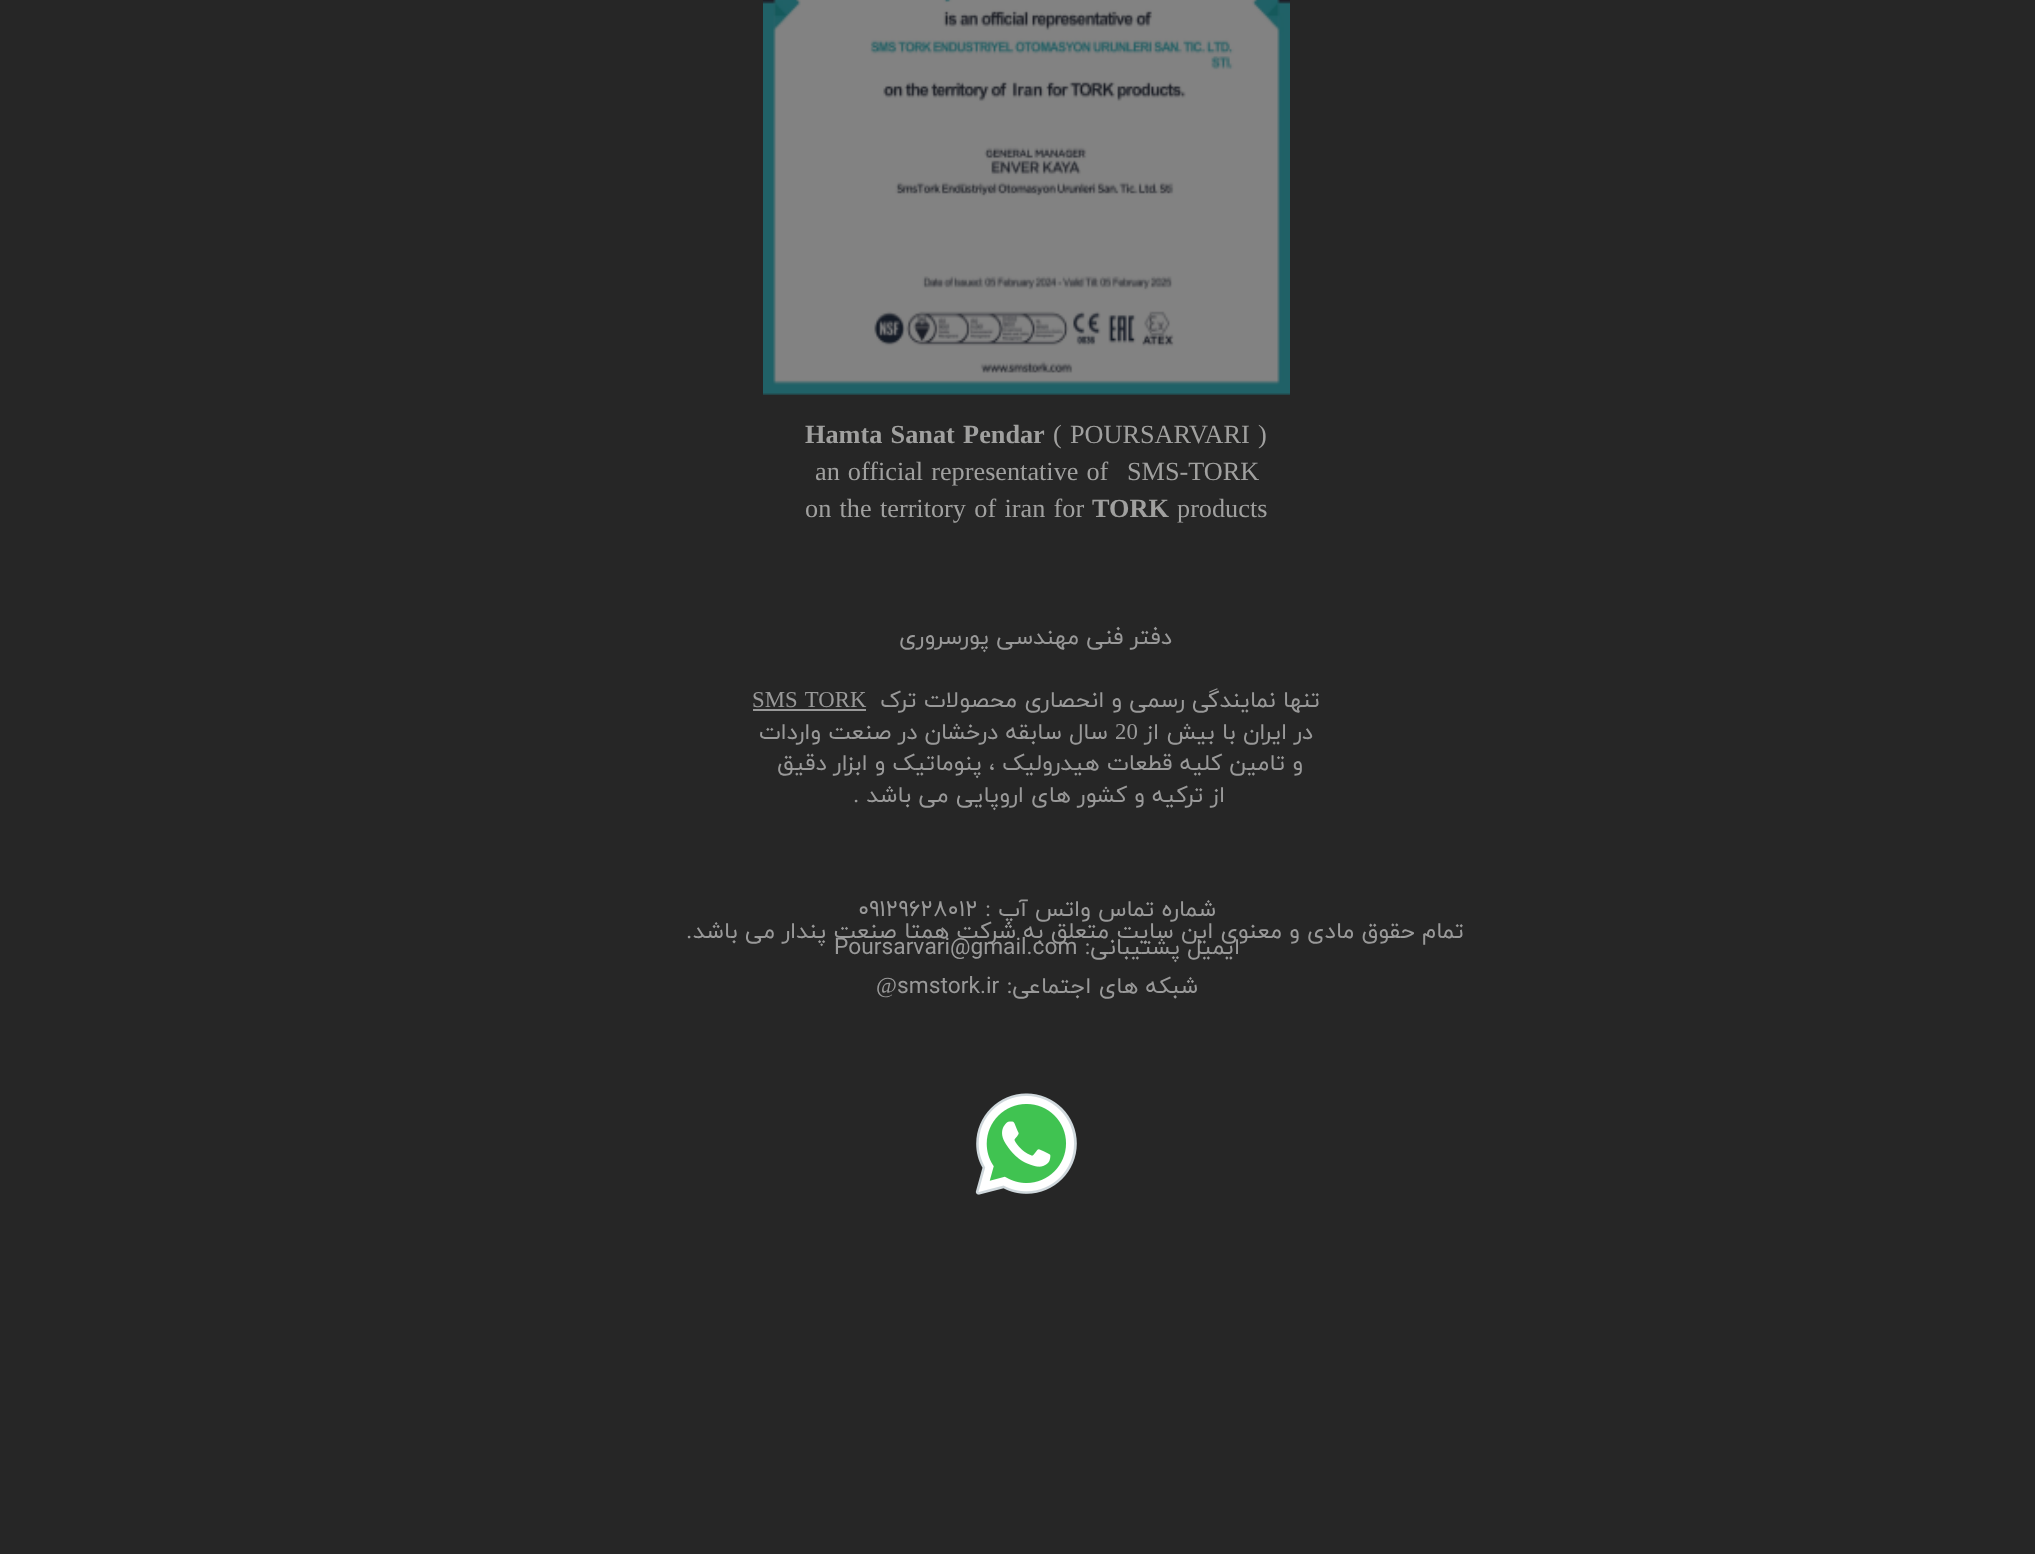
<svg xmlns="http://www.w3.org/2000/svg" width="2035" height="1554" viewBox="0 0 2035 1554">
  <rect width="100%" height="100%" fill="#262626"/>
  <image x="763" y="0" width="527" height="395" href="img1.png"/>
  <text x="1070" y="443" word-spacing="1.75" font-family="Liberation Serif" font-size="26.25" fill="#a0a09f">POURSARVARI )</text>
  <text x="1053" y="443" font-family="Liberation Serif" font-size="26.25" fill="#a0a09f">(</text>
  <text x="805" y="443" word-spacing="1.75" font-family="Liberation Serif" font-size="26.25" font-weight="bold" fill="#a0a09f">Hamta Sanat Pendar</text>
  <text x="1127" y="480" font-family="Liberation Serif" font-size="26.25" fill="#a0a09f">SMS-TORK</text>
  <text x="815" y="480" word-spacing="1.5" font-family="Liberation Serif" font-size="26.25" fill="#a0a09f">an official representative of</text>
  <text x="1177" y="517" font-family="Liberation Serif" font-size="26.25" fill="#a0a09f">products</text>
  <text x="1092" y="517" font-family="Liberation Serif" font-size="26.25" font-weight="bold" fill="#a0a09f">TORK</text>
  <text x="805" y="517" word-spacing="1.75" font-family="Liberation Serif" font-size="26.25" fill="#a0a09f">on the territory of iran for</text>
  <text x="1172" y="644" font-family="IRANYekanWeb" font-size="22.75" direction="rtl" fill="#999999">دفتر فنی مهندسی پورسروری</text>
  <text x="1320" y="707" font-family="IRANYekanWeb" font-size="22.75" direction="rtl" fill="#999999">تنها نمایندگی رسمی و انحصاری محصولات ترک</text>
  <text x="752" y="707" word-spacing="2" font-family="Liberation Serif" font-size="22.75" fill="#999999">SMS TORK</text>
  <rect x="753" y="709" width="113" height="2" fill="#999999"/>
  <text x="1313" y="739" font-family="IRANYekanWeb" font-size="22.75" direction="rtl" fill="#999999">در ایران با بیش از</text>
  <text x="1115" y="739" font-family="Liberation Serif" font-size="22.75" fill="#999999">20</text>
  <text x="1108" y="739" font-family="IRANYekanWeb" font-size="22.75" direction="rtl" fill="#999999">سال سابقه درخشان در صنعت واردات</text>
  <text x="1303" y="770" font-family="IRANYekanWeb" font-size="22.75" direction="rtl" fill="#999999">و تامین کلیه قطعات هیدرولیک ، پنوماتیک و ابزار دقیق</text>
  <text x="1225" y="802" font-family="IRANYekanWeb" font-size="22.75" direction="rtl" fill="#999999">از ترکیه و کشور های اروپایی می باشد</text>
  <text x="859" y="802" font-family="Liberation Serif" font-size="22.75" direction="rtl" fill="#999999">.</text>
  <text x="1216" y="916" font-family="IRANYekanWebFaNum" font-size="22.75" direction="rtl" fill="#999999">شماره تماس واتس آپ :</text>
  <text x="858" y="916" font-family="IRANYekanWebFaNum" font-size="22.75" fill="#999999">09129628012</text>
  <text x="1240" y="954" font-family="IRANYekanWebFaNum" font-size="22.75" direction="rtl" fill="#999999">ایمیل پشتیبانی:</text>
  <text x="834" y="954" font-family="IRANYekanWebFaNum" font-size="22.75" fill="#999999">Poursarvari@gmail.com</text>
  <text x="1198" y="993" font-family="IRANYekanWebFaNum" font-size="22.75" direction="rtl" fill="#999999">شبکه های اجتماعی:</text>
  <text x="897" y="993" font-family="IRANYekanWebFaNum" font-size="22.75" fill="#999999">smstork.ir</text>
  <text x="876" y="993" font-family="Liberation Serif" font-size="22.75" fill="#999999">@</text>
  <image x="975" y="1093" width="102" height="102" href="img2.png"/>
  <text x="1464" y="938" font-family="IRANYekanWeb" font-size="22.75" direction="rtl" fill="#999999">تمام حقوق مادی و معنوی این سایت متعلق به شرکت همتا صنعت پندار می باشد</text>
  <text x="692" y="938" font-family="Liberation Serif" font-size="22.75" direction="rtl" fill="#999999">.</text>
</svg>
